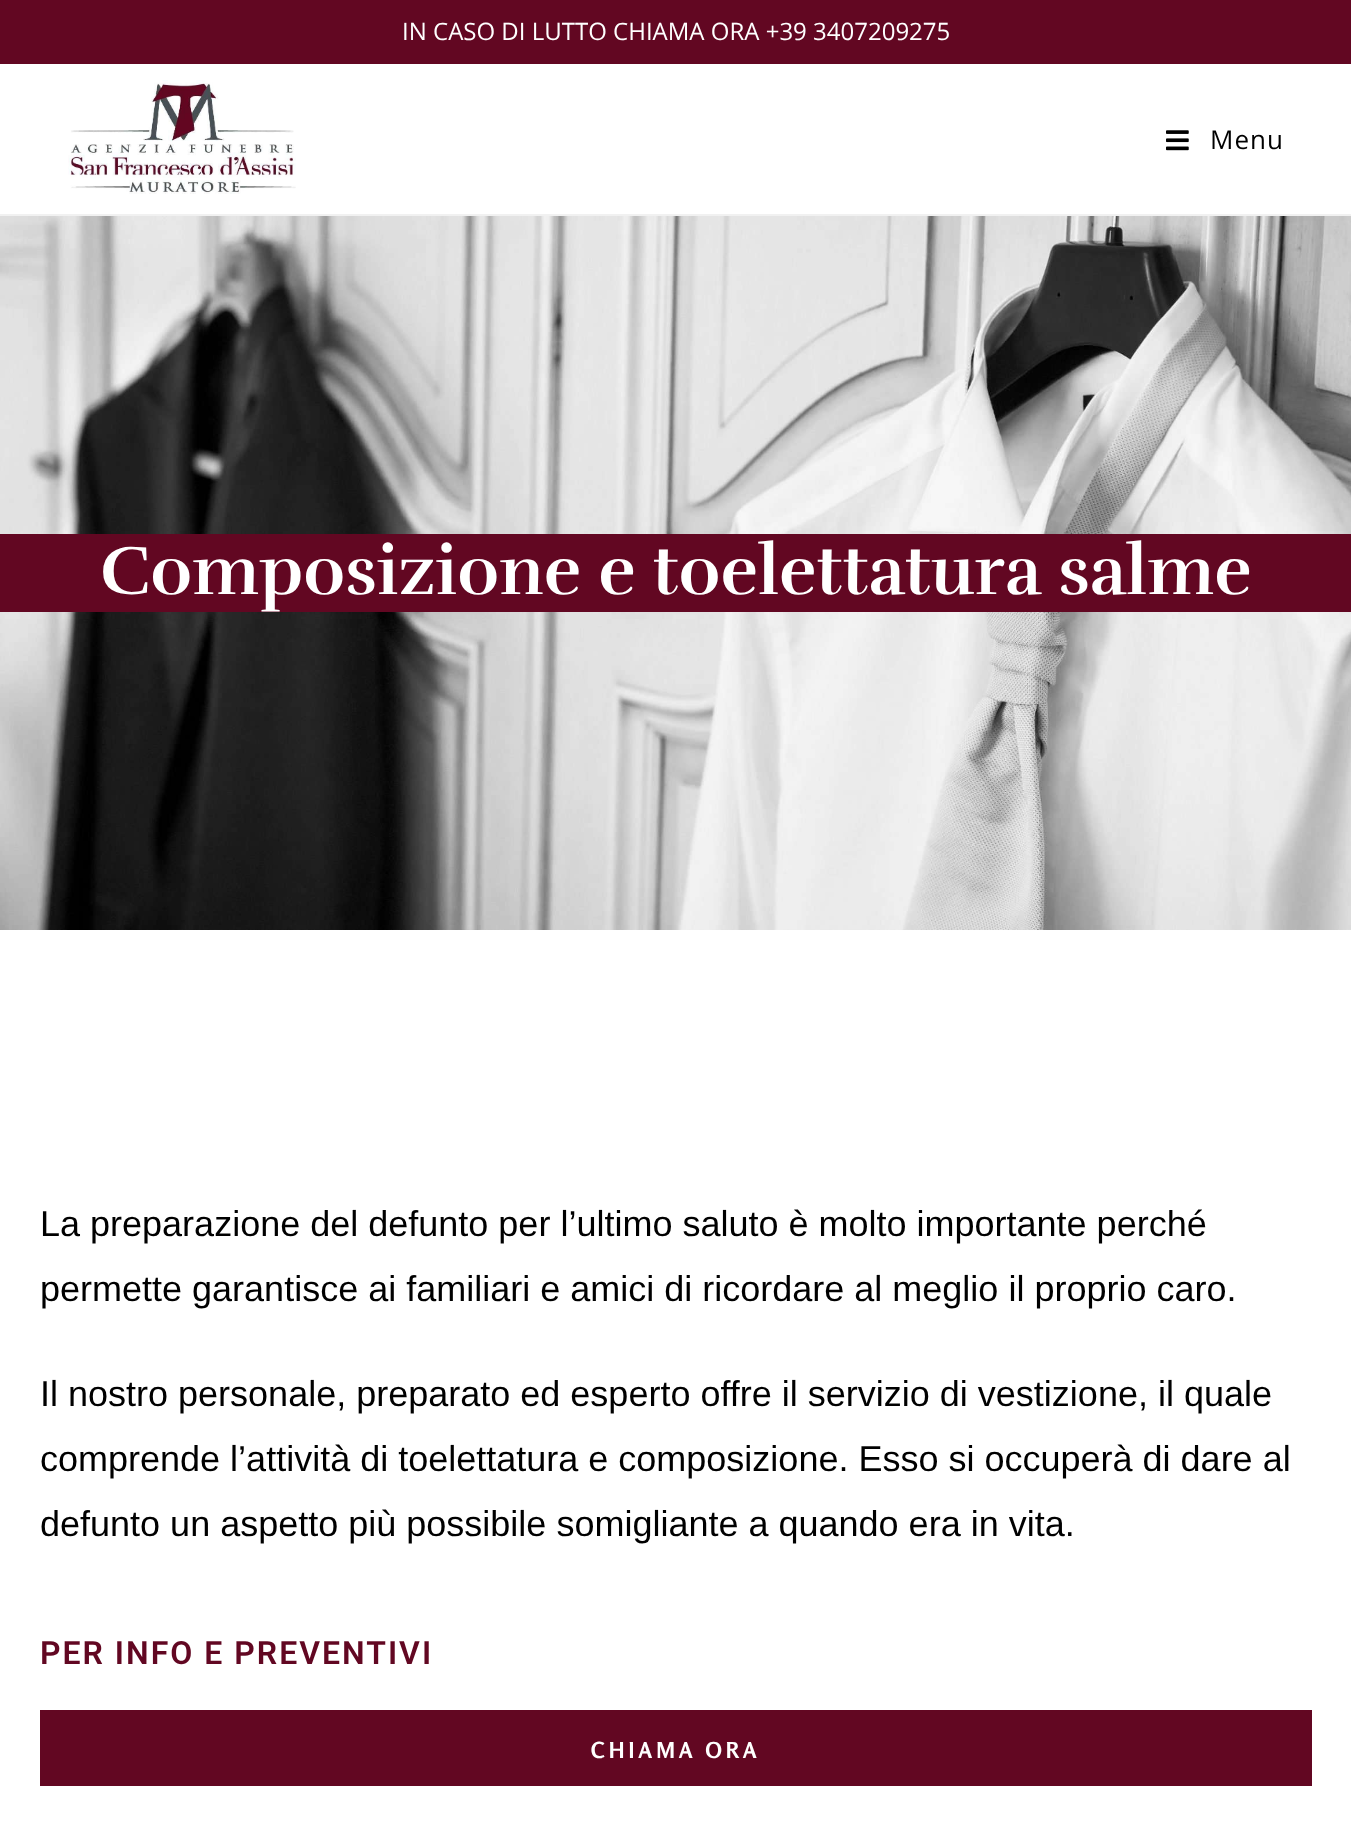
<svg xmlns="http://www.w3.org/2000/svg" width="1351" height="1834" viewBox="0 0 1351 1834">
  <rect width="100%" height="100%" fill="#ffffff"/>
  <rect x="0" y="0" width="1351" height="64" fill="#620722"/>
  <text x="402" y="40" font-family="Open Sans" font-size="24" fill="#ffffff">IN CASO DI LUTTO CHIAMA ORA +39 3407209275</text>
  <rect x="0" y="214" width="1351" height="2" fill="#f1f1f1"/>
  <image x="68" y="80" width="228" height="114" href="img1.png"/>
  <image x="1166" y="130" width="23" height="21" href="img2.png"/>
  <text x="1210" y="149" font-family="Open Sans" font-size="26" letter-spacing="1" fill="#000000">Menu</text>
  <image x="0" y="216" width="1351" height="714" href="img3.png"/>
  <rect x="0" y="534" width="1351" height="78" fill="#620722"/>
  <text x="100" y="594" font-family="Rufina" font-size="70" font-weight="bold" fill="#ffffff">Composizione e toelettatura salme</text>
  <text x="40" y="1236" font-family="Liberation Sans" font-size="36" fill="#000000">La preparazione del defunto per l’ultimo saluto è molto importante perché</text>
  <text x="40" y="1301" font-family="Liberation Sans" font-size="36" fill="#000000">permette garantisce ai familiari e amici di ricordare al meglio il proprio caro.</text>
  <text x="40" y="1406" font-family="Liberation Sans" font-size="36" fill="#000000">Il nostro personale, preparato ed esperto offre il servizio di vestizione, il quale</text>
  <text x="40" y="1471" font-family="Liberation Sans" font-size="36" fill="#000000">comprende l’attività di toelettatura e composizione. Esso si occuperà di dare al</text>
  <text x="40" y="1536" font-family="Liberation Sans" font-size="36" fill="#000000">defunto un aspetto più possibile somigliante a quando era in vita.</text>
  <text x="40" y="1664" font-family="Roboto" font-size="32" font-weight="600" letter-spacing="2" fill="#620722">PER INFO E PREVENTIVI</text>
  <rect x="40" y="1710" width="1272" height="76" fill="#620722"/>
  <text x="591" y="1758" font-family="Rosario" font-size="22" font-weight="bold" letter-spacing="4" fill="#ffffff">CHIAMA ORA</text>
</svg>
